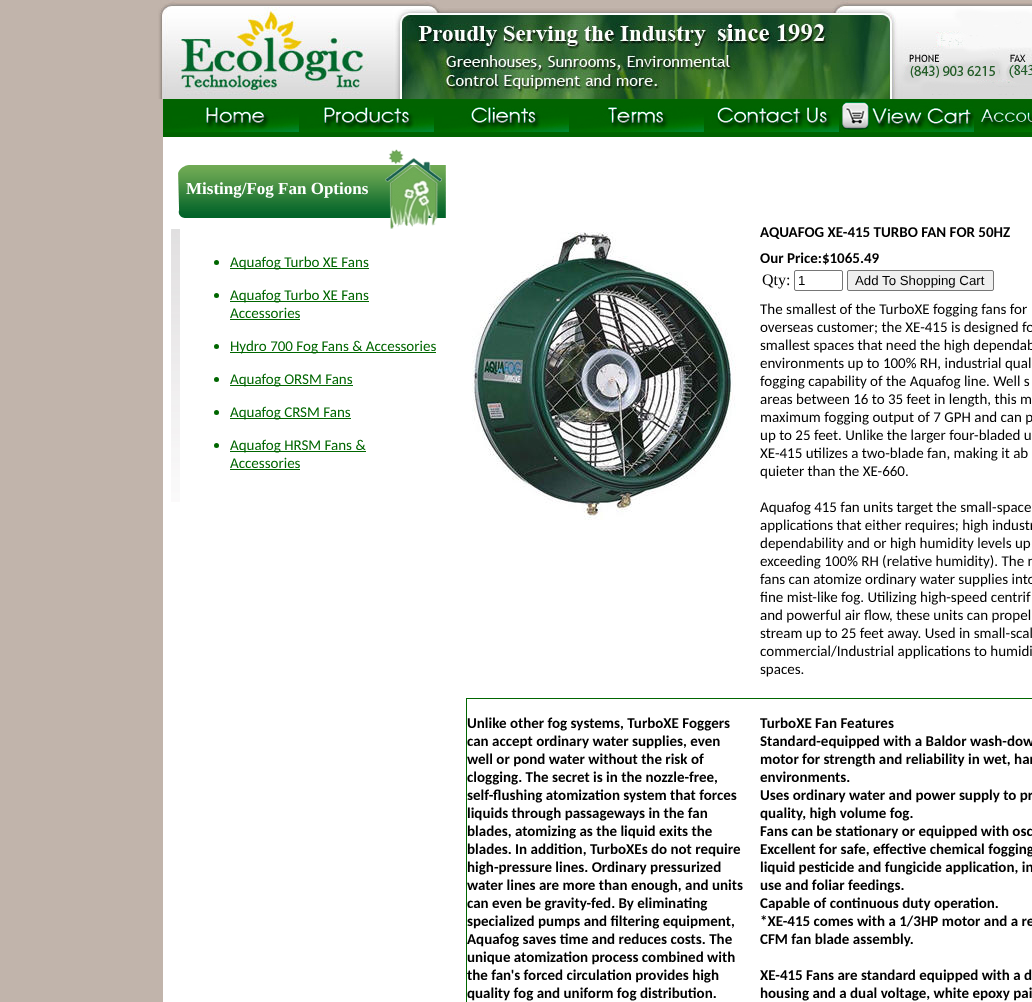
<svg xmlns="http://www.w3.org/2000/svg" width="1032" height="1002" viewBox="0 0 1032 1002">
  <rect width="100%" height="100%" fill="#c1b4ab"/>
  <image x="158" y="0" width="874" height="99" href="img1.png"/>
  <rect x="163" y="100" width="869" height="37" fill="#016300"/>
  <rect x="163" y="99" width="869" height="1" fill="#006600"/>
  <rect x="163" y="132" width="869" height="1" fill="#006600"/>
  <rect x="163" y="99" width="1" height="34" fill="#006600"/>
  <image x="164" y="106" width="135" height="26" href="img2.png"/>
  <image x="299" y="106" width="135" height="26" href="img3.png"/>
  <image x="434" y="106" width="135" height="26" href="img4.png"/>
  <image x="569" y="106" width="135" height="26" href="img5.png"/>
  <image x="704" y="106" width="135" height="26" href="img6.png"/>
  <image x="839" y="101" width="135" height="31" href="img7.png"/>
  <image x="974" y="108" width="58" height="24" href="img8.png"/>
  <rect x="163" y="137" width="869" height="865" fill="#ffffff"/>
  <image x="178" y="149" width="268" height="80" href="img9.png"/>
  <image x="171" y="229" width="9" height="273" href="img10.png"/>
  <text x="186" y="194" font-family="Liberation Serif" font-size="17" font-weight="bold" fill="#ffffff">Misting/Fog Fan Options</text>
  <image x="472" y="232" width="264" height="288" href="img11.png"/>
  <text x="760" y="237" font-family="Carlito" font-size="15" font-weight="bold" fill="#000000">AQUAFOG XE-415 TURBO FAN FOR 50HZ</text>
  <circle cx="216.5" cy="262.5" r="2.5" fill="#006600"/>
  <rect x="230" y="268" width="139" height="1" fill="#006600"/>
  <text x="230" y="267" font-family="Carlito" font-size="15" fill="#006600">Aquafog Turbo XE Fans</text>
  <circle cx="216.5" cy="295.5" r="2.5" fill="#006600"/>
  <rect x="230" y="301" width="139" height="1" fill="#006600"/>
  <text x="230" y="300" font-family="Carlito" font-size="15" fill="#006600">Aquafog Turbo XE Fans</text>
  <text x="230" y="318" font-family="Carlito" font-size="15" fill="#006600">Accessories</text>
  <rect x="230" y="319" width="70" height="1" fill="#006600"/>
  <circle cx="216.5" cy="346.5" r="2.5" fill="#006600"/>
  <rect x="230" y="352" width="206" height="1" fill="#006600"/>
  <text x="230" y="351" font-family="Carlito" font-size="15" fill="#006600">Hydro 700 Fog Fans &amp; Accessories</text>
  <circle cx="216.5" cy="379.5" r="2.5" fill="#006600"/>
  <rect x="230" y="385" width="123" height="1" fill="#006600"/>
  <text x="230" y="384" font-family="Carlito" font-size="15" fill="#006600">Aquafog ORSM Fans</text>
  <circle cx="216.5" cy="412.5" r="2.5" fill="#006600"/>
  <rect x="230" y="418" width="121" height="1" fill="#006600"/>
  <text x="230" y="417" font-family="Carlito" font-size="15" fill="#006600">Aquafog CRSM Fans</text>
  <circle cx="216.5" cy="445.5" r="2.5" fill="#006600"/>
  <rect x="230" y="451" width="136" height="1" fill="#006600"/>
  <text x="230" y="450" font-family="Carlito" font-size="15" fill="#006600">Aquafog HRSM Fans &amp;</text>
  <text x="230" y="468" font-family="Carlito" font-size="15" fill="#006600">Accessories</text>
  <rect x="230" y="469" width="70" height="1" fill="#006600"/>
  <text x="760" y="263" font-family="Carlito" font-size="15" font-weight="bold" fill="#000000">Our Price:$1065.49</text>
  <text x="762" y="285" font-family="Liberation Serif" font-size="16" fill="#000000">Qty:</text>
  <rect x="794.5" y="270.5" width="48" height="20" rx="1.5" fill="none" stroke="#767676"/>
  <text x="798" y="285" font-family="Liberation Sans" font-size="13.25" fill="#000000">1</text>
  <rect x="847.5" y="270.5" width="146" height="20" rx="1.5" fill="#efefef" stroke="#767676"/>
  <text x="855" y="285" font-family="Liberation Sans" font-size="13.25" fill="#000000">Add To Shopping Cart</text>
  <text x="760" y="314" font-family="Carlito" font-size="15" fill="#000000">The smallest of the TurboXE fogging fans for</text>
  <text x="760" y="332" font-family="Carlito" font-size="15" fill="#000000">overseas customer; the XE-415 is designed fo</text>
  <text x="760" y="350" font-family="Carlito" font-size="15" fill="#000000">smallest spaces that need the high dependab</text>
  <text x="760" y="368" font-family="Carlito" font-size="15" fill="#000000">environments up to 100% RH, industrial qual</text>
  <text x="760" y="386" font-family="Carlito" font-size="15" fill="#000000">fogging capability of the Aquafog line. Well s</text>
  <text x="760" y="404" font-family="Carlito" font-size="15" fill="#000000">areas between 16 to 35 feet in length, this m</text>
  <text x="760" y="422" font-family="Carlito" font-size="15" fill="#000000">maximum fogging output of 7 GPH and can p</text>
  <text x="760" y="440" font-family="Carlito" font-size="15" fill="#000000">up to 25 feet. Unlike the larger four-bladed u</text>
  <text x="760" y="458" font-family="Carlito" font-size="15" fill="#000000">XE-415 utilizes a two-blade fan, making it ab</text>
  <text x="760" y="476" font-family="Carlito" font-size="15" fill="#000000">quieter than the XE-660.</text>
  <text x="760" y="512" font-family="Carlito" font-size="15" fill="#000000">Aquafog 415 fan units target the small-space</text>
  <text x="760" y="530" font-family="Carlito" font-size="15" fill="#000000">applications that either requires; high industr</text>
  <text x="760" y="548" font-family="Carlito" font-size="15" fill="#000000">dependability and or high humidity levels up</text>
  <text x="760" y="566" font-family="Carlito" font-size="15" fill="#000000">exceeding 100% RH (relative humidity). The n</text>
  <text x="760" y="584" font-family="Carlito" font-size="15" fill="#000000">fans can atomize ordinary water supplies into</text>
  <text x="760" y="602" font-family="Carlito" font-size="15" fill="#000000">fine mist-like fog. Utilizing high-speed centrif</text>
  <text x="760" y="620" font-family="Carlito" font-size="15" fill="#000000">and powerful air flow, these units can propel</text>
  <text x="760" y="638" font-family="Carlito" font-size="15" fill="#000000">stream up to 25 feet away. Used in small-scal</text>
  <text x="760" y="656" font-family="Carlito" font-size="15" fill="#000000">commercial/Industrial applications to humidi</text>
  <text x="760" y="674" font-family="Carlito" font-size="15" fill="#000000">spaces.</text>
  <rect x="466" y="698" width="566" height="1" fill="#006600"/>
  <rect x="466" y="698" width="1" height="304" fill="#006600"/>
  <text x="467" y="728" font-family="Carlito" font-size="15" font-weight="bold" fill="#000000">Unlike other fog systems, TurboXE Foggers</text>
  <text x="467" y="746" font-family="Carlito" font-size="15" font-weight="bold" fill="#000000">can accept ordinary water supplies, even</text>
  <text x="467" y="764" font-family="Carlito" font-size="15" font-weight="bold" fill="#000000">well or pond water without the risk of</text>
  <text x="467" y="782" font-family="Carlito" font-size="15" font-weight="bold" fill="#000000">clogging. The secret is in the nozzle-free,</text>
  <text x="467" y="800" font-family="Carlito" font-size="15" font-weight="bold" fill="#000000">self-flushing atomization system that forces</text>
  <text x="467" y="818" font-family="Carlito" font-size="15" font-weight="bold" fill="#000000">liquids through passageways in the fan</text>
  <text x="467" y="836" font-family="Carlito" font-size="15" font-weight="bold" fill="#000000">blades, atomizing as the liquid exits the</text>
  <text x="467" y="854" font-family="Carlito" font-size="15" font-weight="bold" fill="#000000">blades. In addition, TurboXEs do not require</text>
  <text x="467" y="872" font-family="Carlito" font-size="15" font-weight="bold" fill="#000000">high-pressure lines. Ordinary pressurized</text>
  <text x="467" y="890" font-family="Carlito" font-size="15" font-weight="bold" fill="#000000">water lines are more than enough, and units</text>
  <text x="467" y="908" font-family="Carlito" font-size="15" font-weight="bold" fill="#000000">can even be gravity-fed. By eliminating</text>
  <text x="467" y="926" font-family="Carlito" font-size="15" font-weight="bold" fill="#000000">specialized pumps and filtering equipment,</text>
  <text x="467" y="944" font-family="Carlito" font-size="15" font-weight="bold" fill="#000000">Aquafog saves time and reduces costs. The</text>
  <text x="467" y="962" font-family="Carlito" font-size="15" font-weight="bold" fill="#000000">unique atomization process combined with</text>
  <text x="467" y="980" font-family="Carlito" font-size="15" font-weight="bold" fill="#000000">the fan's forced circulation provides high</text>
  <text x="467" y="998" font-family="Carlito" font-size="15" font-weight="bold" fill="#000000">quality fog and uniform fog distribution.</text>
  <text x="760" y="728" font-family="Carlito" font-size="15" font-weight="bold" fill="#000000">TurboXE Fan Features</text>
  <text x="760" y="746" font-family="Carlito" font-size="15" font-weight="bold" fill="#000000">Standard-equipped with a Baldor wash-dow</text>
  <text x="760" y="764" font-family="Carlito" font-size="15" font-weight="bold" fill="#000000">motor for strength and reliability in wet, har</text>
  <text x="760" y="782" font-family="Carlito" font-size="15" font-weight="bold" fill="#000000">environments.</text>
  <text x="760" y="800" font-family="Carlito" font-size="15" font-weight="bold" fill="#000000">Uses ordinary water and power supply to pr</text>
  <text x="760" y="818" font-family="Carlito" font-size="15" font-weight="bold" fill="#000000">quality, high volume fog.</text>
  <text x="760" y="836" font-family="Carlito" font-size="15" font-weight="bold" fill="#000000">Fans can be stationary or equipped with osc</text>
  <text x="760" y="854" font-family="Carlito" font-size="15" font-weight="bold" fill="#000000">Excellent for safe, effective chemical fogging</text>
  <text x="760" y="872" font-family="Carlito" font-size="15" font-weight="bold" fill="#000000">liquid pesticide and fungicide application, in</text>
  <text x="760" y="890" font-family="Carlito" font-size="15" font-weight="bold" fill="#000000">use and foliar feedings.</text>
  <text x="760" y="908" font-family="Carlito" font-size="15" font-weight="bold" fill="#000000">Capable of continuous duty operation.</text>
  <text x="760" y="926" font-family="Carlito" font-size="15" font-weight="bold" fill="#000000">*XE-415 comes with a 1/3HP motor and a re</text>
  <text x="760" y="944" font-family="Carlito" font-size="15" font-weight="bold" fill="#000000">CFM fan blade assembly.</text>
  <text x="760" y="980" font-family="Carlito" font-size="15" font-weight="bold" fill="#000000">XE-415 Fans are standard equipped with a d</text>
  <text x="760" y="998" font-family="Carlito" font-size="15" font-weight="bold" fill="#000000">housing and a dual voltage, white epoxy pai</text>
</svg>
